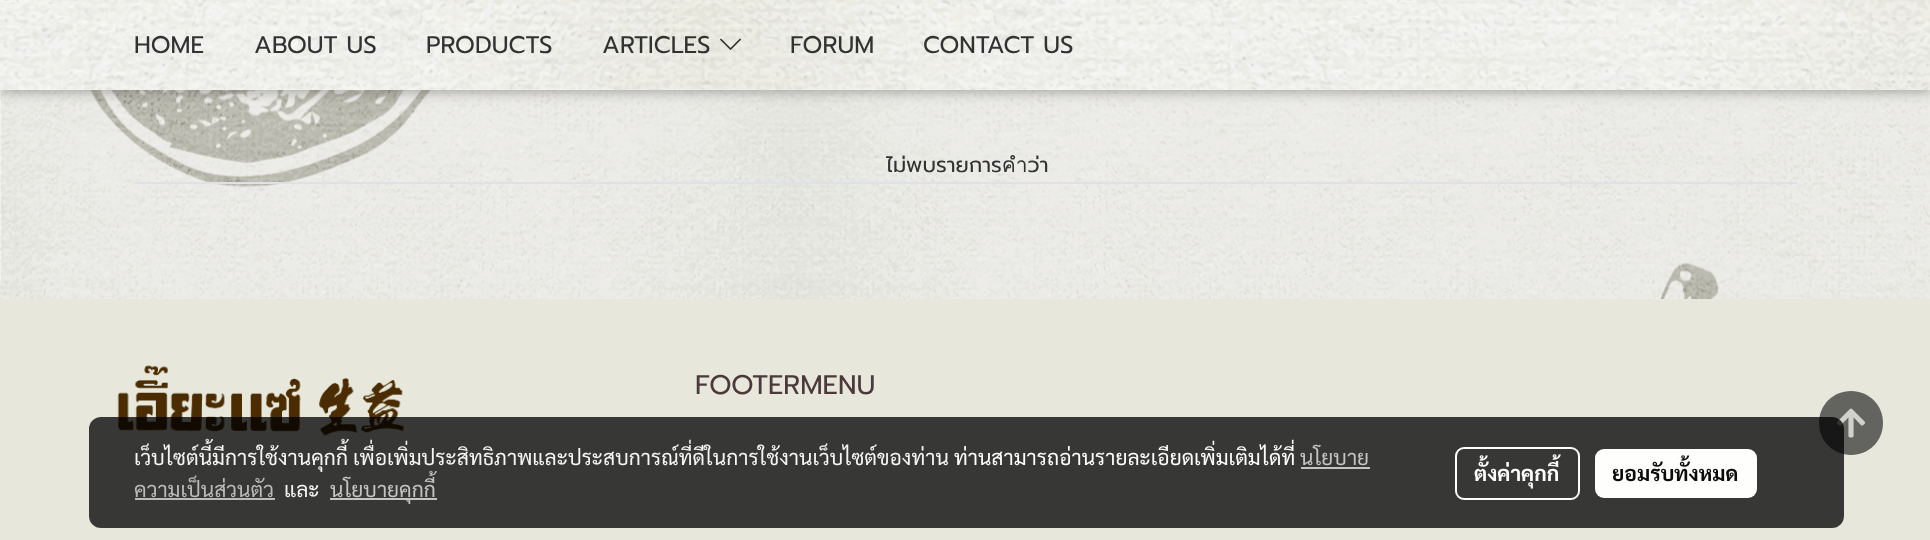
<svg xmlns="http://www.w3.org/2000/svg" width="1930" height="540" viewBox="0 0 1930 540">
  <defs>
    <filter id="blur1" x="-50%" y="-200%" width="200%" height="500%"><feGaussianBlur stdDeviation="7.5"/></filter>
    <filter id="blur2" x="-50%" y="-200%" width="200%" height="500%"><feGaussianBlur stdDeviation="4"/></filter>
  </defs>
  <rect width="100%" height="100%" fill="#ffffff"/>
  <image x="0" y="90" width="1930" height="209" href="img1.png"/>
  <rect x="0" y="3" width="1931" height="90" fill="#000000" fill-opacity="0.12" filter="url(#blur1)"/>
  <rect x="0" y="3" width="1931" height="90" fill="#000000" fill-opacity="0.16" filter="url(#blur2)"/>
  <image x="0" y="0" width="1930" height="90" href="img2.png"/>
  <text x="134" y="53" font-family="Prompt" font-size="24" fill="#323232">HOME</text>
  <text x="254" y="53" font-family="Prompt" font-size="24" fill="#323232">ABOUT US</text>
  <text x="426" y="53" font-family="Prompt" font-size="24" fill="#323232">PRODUCTS</text>
  <text x="602" y="53" font-family="Prompt" font-size="24" fill="#323232">ARTICLES</text>
  <image x="720" y="38" width="21" height="12" href="img3.png"/>
  <text x="790" y="53" font-family="Prompt" font-size="24" fill="#323232">FORUM</text>
  <text x="923" y="53" font-family="Prompt" font-size="24" fill="#323232">CONTACT US</text>
  <rect x="135" y="182" width="1662" height="2" fill="#dee2e6"/>
  <text x="886" y="172" font-family="Prompt" font-size="21" fill="#323232">ไม่พบรายการคำว่า</text>
  <rect x="0" y="299" width="1930" height="241" fill="#e7e7dc"/>
  <image x="117" y="365" width="288" height="71" href="img4.png"/>
  <text x="695" y="394" font-family="Prompt" font-size="27" fill="#4c393b">FOOTERMENU</text>
  <path d="M1851 391C1833 391 1819 405 1819 423C1819 441 1833 455 1851 455C1869 455 1883 441 1883 423C1883 405 1869 391 1851 391Z" fill="#63635f"/>
  <image x="1837" y="408" width="28" height="30" href="img5.png"/>
  <rect x="89" y="417" width="1755" height="111" rx="12" fill="#000000" fill-opacity="0.76"/>
  <text x="134" y="465" font-family="Sarabun" font-size="21" fill="#f5f5f5">เว็บไซต์นี้มีการใช้งานคุกกี้ เพื่อเพิ่มประสิทธิภาพและประสบการณ์ที่ดีในการใช้งานเว็บไซต์ของท่าน</text>
  <text x="954" y="465" font-family="Sarabun" font-size="21" fill="#fefefd">ท่านสามารถอ่านรายละเอียดเพิ่มเติมได้ที่</text>
  <text x="1300" y="465" font-family="Sarabun" font-size="21" fill="#c4c4c3">นโยบาย</text>
  <rect x="1301" y="467" width="69" height="2" fill="#c4c4c3"/>
  <text x="134" y="497" font-family="Sarabun" font-size="21" fill="#bbbbba">ความเป็นส่วนตัว</text>
  <rect x="135" y="498" width="140" height="2" fill="#c2c2c2" fill-opacity="0.95"/>
  <text x="284" y="497" font-family="Sarabun" font-size="21" fill="#f5f5f5">และ</text>
  <rect x="330" y="498" width="107" height="2" fill="#c4c4c3"/>
  <text x="330" y="497" font-family="Sarabun" font-size="21" fill="#c4c4c3">นโยบายคุกกี้</text>
  <rect x="1456" y="448" width="123" height="51" rx="8" fill="none" stroke="#fefefd" stroke-width="2"/>
  <text x="1474" y="481" font-family="Sarabun" font-size="21" font-weight="bold" fill="#fefefd">ตั้งค่าคุกกี้</text>
  <rect x="1595" y="449" width="162" height="49" rx="9" fill="#fefefd"/>
  <text x="1612" y="481" font-family="Sarabun" font-size="21" font-weight="bold" fill="#0c0c0b">ยอมรับทั้งหมด</text>
</svg>
